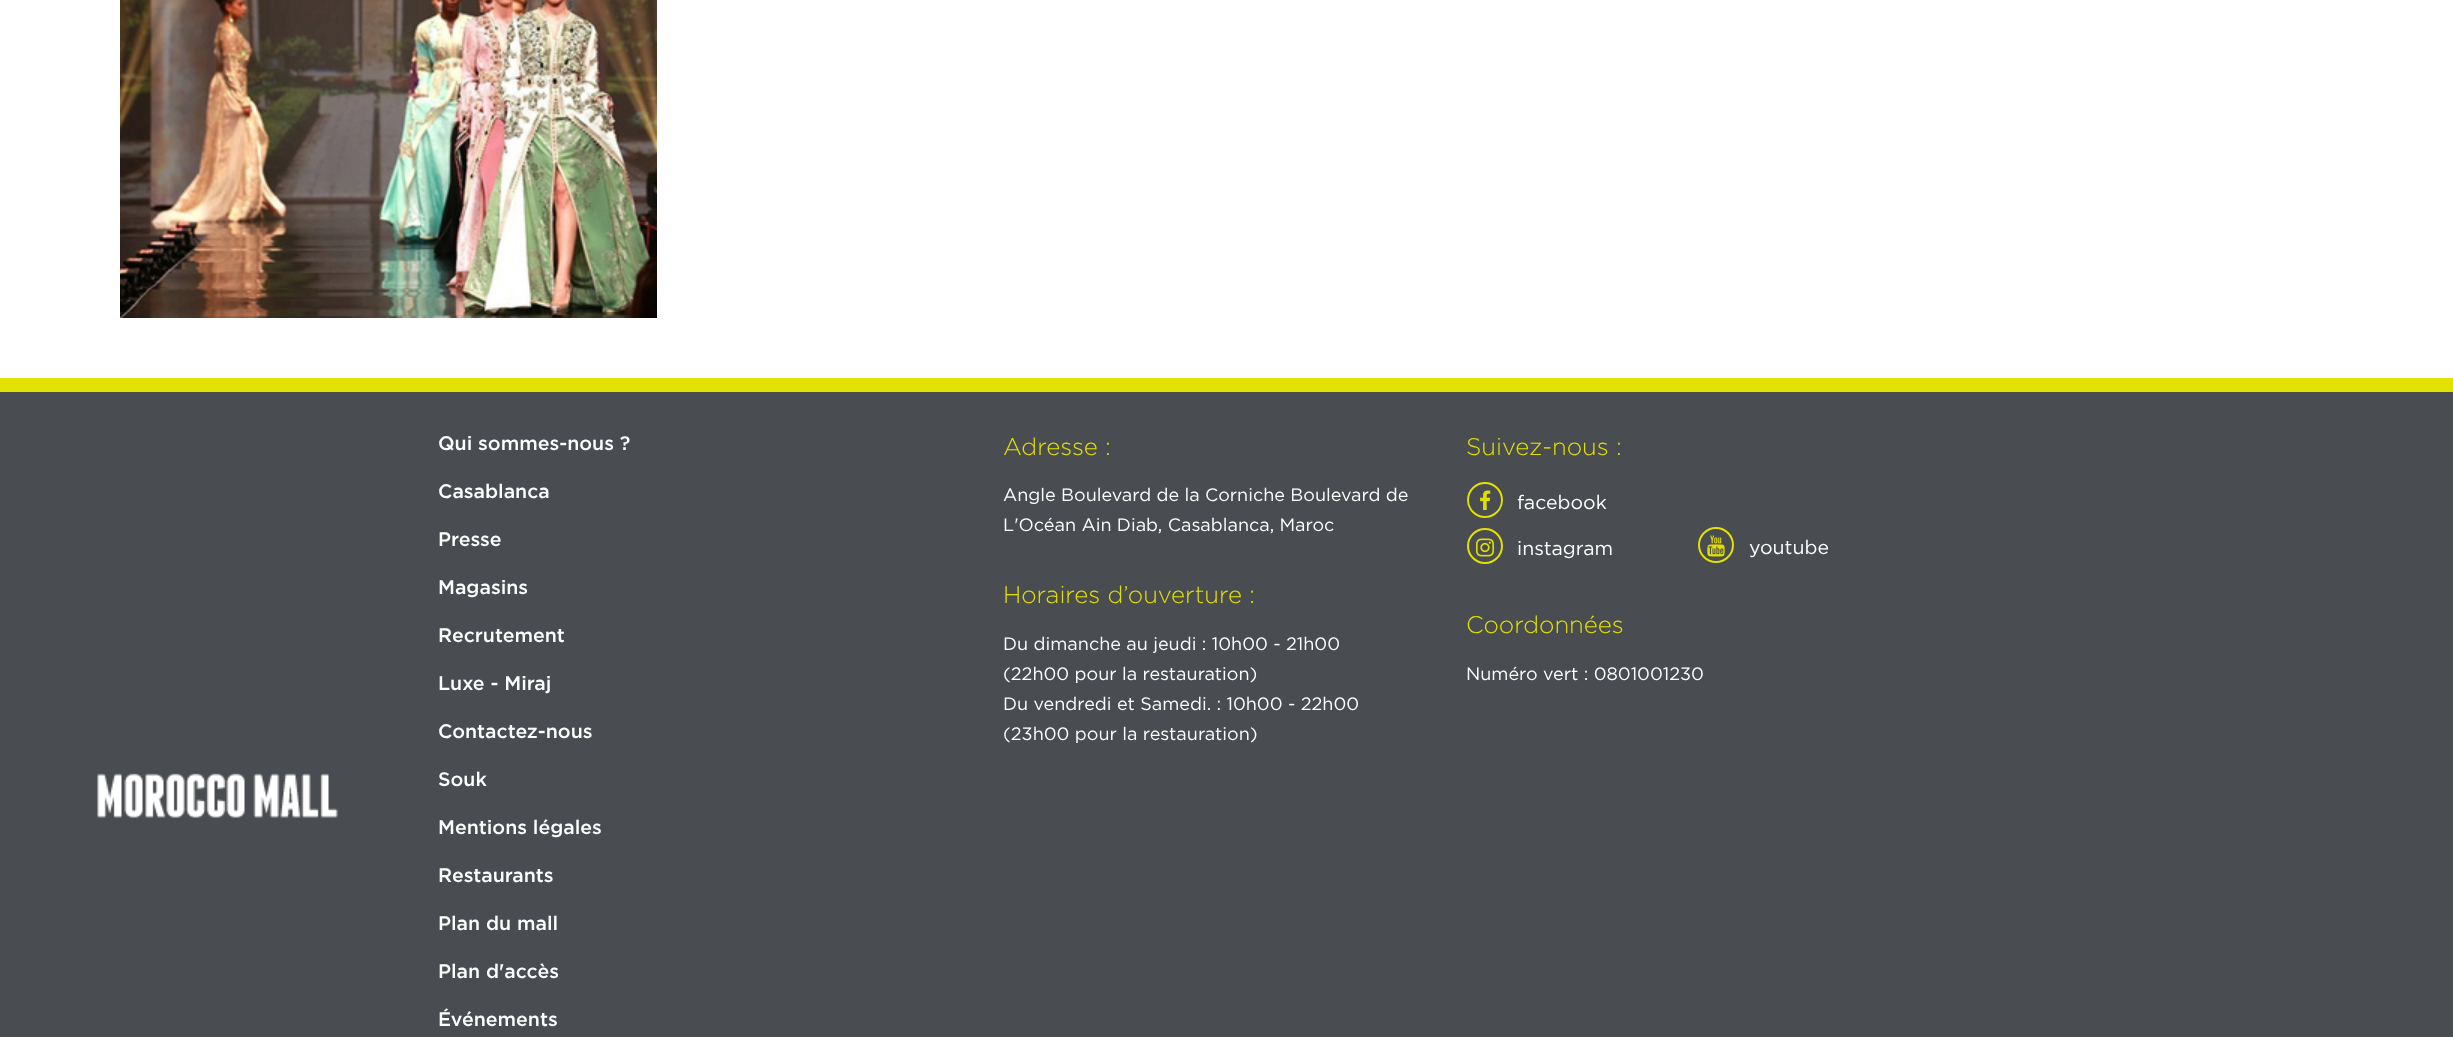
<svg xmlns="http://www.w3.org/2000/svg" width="2453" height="1037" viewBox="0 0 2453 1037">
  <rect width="100%" height="100%" fill="#ffffff"/>
  <image x="120" y="0" width="537" height="318" href="img1.png"/>
  <rect x="0" y="392" width="2453" height="645" fill="#494c50"/>
  <rect x="0" y="378" width="2453" height="14" fill="#e1e200"/>
  <text x="438" y="450" font-family="Gotham" font-size="19.5" font-weight="500" fill="#ffffff">Qui sommes-nous ?</text>
  <text x="438" y="498" font-family="Gotham" font-size="19.5" font-weight="500" fill="#ffffff">Casablanca</text>
  <text x="438" y="546" font-family="Gotham" font-size="19.5" font-weight="500" fill="#ffffff">Presse</text>
  <text x="438" y="594" font-family="Gotham" font-size="19.5" font-weight="500" fill="#ffffff">Magasins</text>
  <text x="438" y="642" font-family="Gotham" font-size="19.5" font-weight="500" fill="#ffffff">Recrutement</text>
  <text x="438" y="690" font-family="Gotham" font-size="19.5" font-weight="500" fill="#ffffff">Luxe - Miraj</text>
  <text x="438" y="738" font-family="Gotham" font-size="19.5" font-weight="500" fill="#ffffff">Contactez-nous</text>
  <text x="438" y="786" font-family="Gotham" font-size="19.5" font-weight="500" fill="#ffffff">Souk</text>
  <text x="438" y="834" font-family="Gotham" font-size="19.5" font-weight="500" fill="#ffffff">Mentions légales</text>
  <text x="438" y="882" font-family="Gotham" font-size="19.5" font-weight="500" fill="#ffffff">Restaurants</text>
  <text x="438" y="930" font-family="Gotham" font-size="19.5" font-weight="500" fill="#ffffff">Plan du mall</text>
  <text x="438" y="978" font-family="Gotham" font-size="19.5" font-weight="500" fill="#ffffff">Plan d'accès</text>
  <text x="438" y="1026" font-family="Gotham" font-size="19.5" font-weight="500" fill="#ffffff">Événements</text>
  <text x="1003" y="455" font-family="Gotham" font-size="24" font-weight="300" fill="#e2e000">Adresse :</text>
  <text x="1003" y="501" font-family="Gotham" font-size="18" fill="#ffffff">Angle Boulevard de la Corniche Boulevard de</text>
  <text x="1003" y="531" font-family="Gotham" font-size="18" fill="#ffffff">L'Océan Ain Diab, Casablanca, Maroc</text>
  <text x="1003" y="603" font-family="Gotham" font-size="24" font-weight="300" fill="#e2e000">Horaires d’ouverture :</text>
  <text x="1003" y="650" font-family="Gotham" font-size="18" fill="#ffffff">Du dimanche au jeudi : 10h00 - 21h00</text>
  <text x="1003" y="680" font-family="Gotham" font-size="18" fill="#ffffff">(22h00 pour la restauration)</text>
  <text x="1003" y="710" font-family="Gotham" font-size="18" fill="#ffffff">Du vendredi et Samedi. : 10h00 - 22h00</text>
  <text x="1003" y="740" font-family="Gotham" font-size="18" fill="#ffffff">(23h00 pour la restauration)</text>
  <text x="1466" y="455" font-family="Gotham" font-size="24" font-weight="300" fill="#e2e000">Suivez-nous :</text>
  <circle cx="1485" cy="500" r="17" fill="none" stroke="#e2e000" stroke-width="2"/>
  <image x="1480" y="490" width="11" height="20" href="img2.png"/>
  <text x="1517" y="509" font-family="Gotham" font-size="19.5" fill="#ffffff">facebook</text>
  <circle cx="1485" cy="546" r="17" fill="none" stroke="#e2e000" stroke-width="2"/>
  <image x="1476" y="538" width="18" height="19" href="img3.png"/>
  <text x="1517" y="555" font-family="Gotham" font-size="19.5" fill="#ffffff">instagram</text>
  <circle cx="1716" cy="545" r="17" fill="none" stroke="#e2e000" stroke-width="2"/>
  <image x="1707" y="535" width="18" height="22" href="img4.png"/>
  <text x="1749" y="554" font-family="Gotham" font-size="19.5" fill="#ffffff">youtube</text>
  <text x="1466" y="633" font-family="Gotham" font-size="24" font-weight="300" fill="#e2e000">Coordonnées</text>
  <text x="1466" y="680" font-family="Gotham" font-size="18" fill="#ffffff">Numéro vert : 0801001230</text>
  <image x="97" y="773" width="241" height="45" href="img5.png"/>
</svg>
